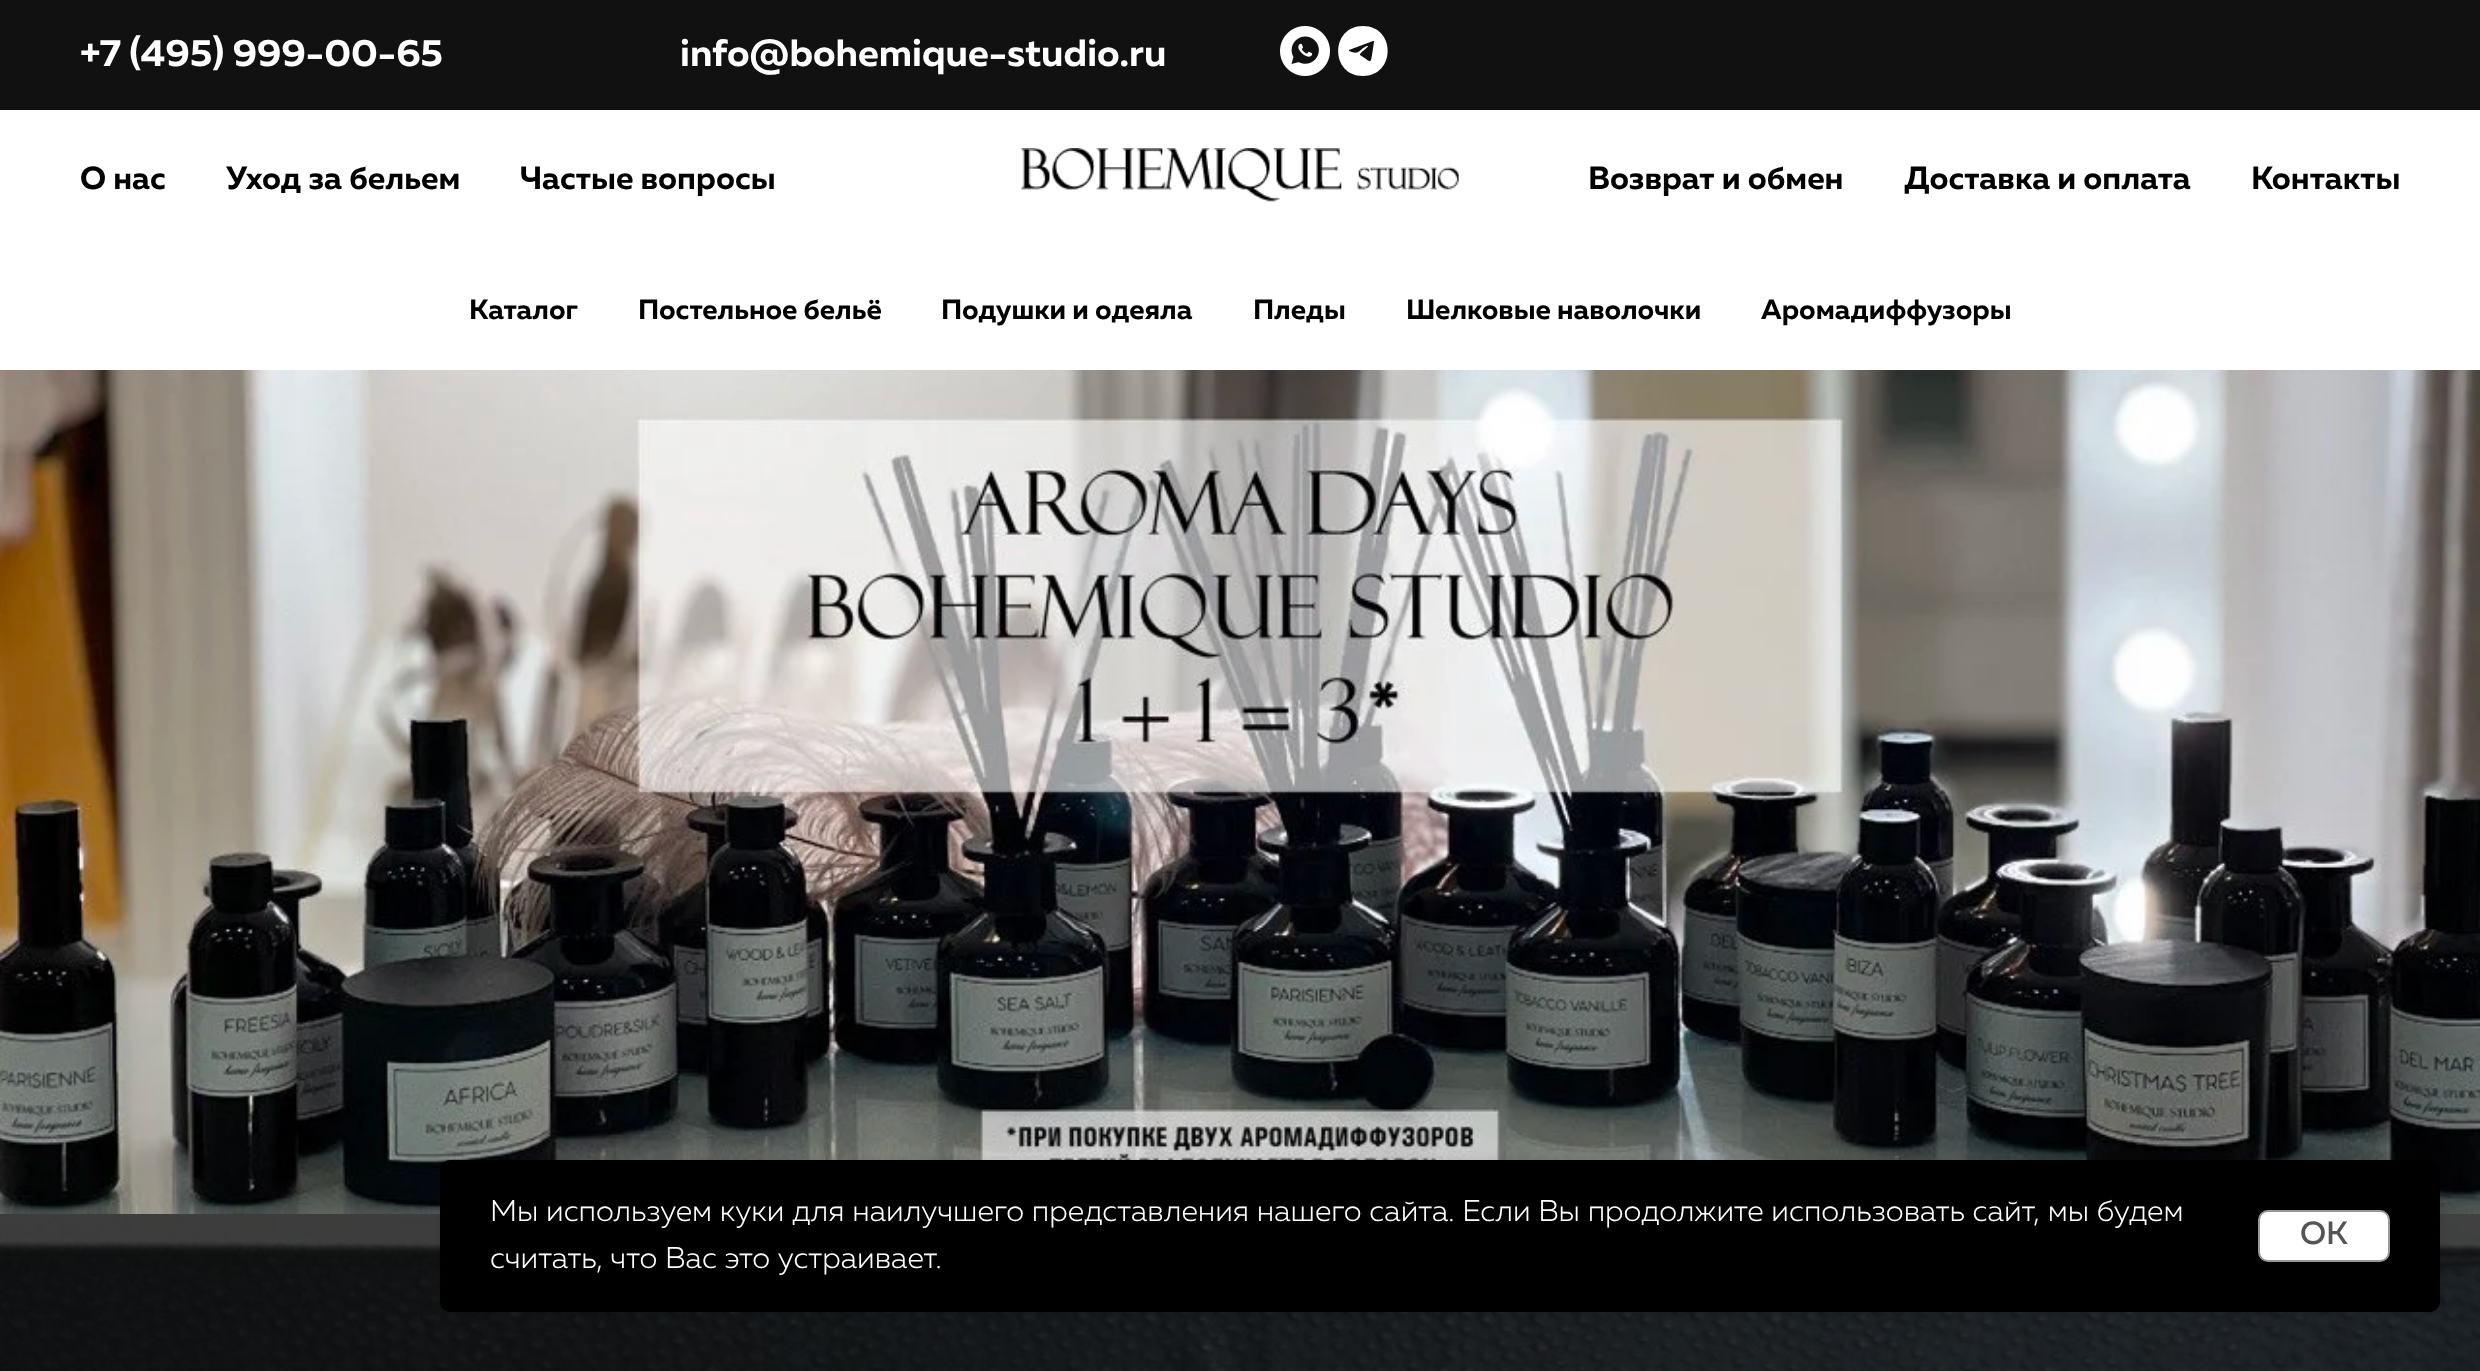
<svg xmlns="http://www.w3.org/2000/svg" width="2480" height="1371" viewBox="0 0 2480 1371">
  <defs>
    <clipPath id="clip1"><rect x="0" y="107" width="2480" height="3"/></clipPath>
    <filter id="blur1" x="-50%" y="-200%" width="200%" height="500%"><feGaussianBlur stdDeviation="3"/></filter>
    <filter id="blur2" x="-50%" y="-200%" width="200%" height="500%"><feGaussianBlur stdDeviation="5"/></filter>
  </defs>
  <rect width="100%" height="100%" fill="#ffffff"/>
  <rect x="0" y="0" width="2480" height="110" fill="#111111"/>
  <text x="80" y="66" font-family="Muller" font-size="38" font-weight="bold" fill="#ffffff">+7 (495) 999-00-65</text>
  <text x="680" y="66" font-family="Muller" font-size="38" font-weight="bold" fill="#ffffff">info@bohemique-studio.ru</text>
  <image x="1280" y="26" width="50" height="50" href="img1.png"/>
  <path d="M1363 76C1396 76 1396 26 1363 26C1330 26 1330 76 1363 76ZM1374 42C1374 41 1374 41 1373 41L1349 50V51L1352 52C1359 55 1361 48 1367 46H1368C1369 47 1359 53 1360 55L1366 59C1371 63 1371 61 1372 55Z" fill="#ffffff" fill-rule="evenodd"/>
  <g clip-path="url(#clip1)">
    <rect x="0" y="112" width="2480" height="140" fill="#000000" fill-opacity="0.5" filter="url(#blur1)"/>
  </g>
  <text x="80" y="189" font-family="Muller" font-size="32" font-weight="bold" fill="#000000">О нас</text>
  <text x="226" y="189" font-family="Muller" font-size="32" font-weight="bold" fill="#000000">Уход за бельем</text>
  <text x="520" y="189" font-family="Muller" font-size="32" font-weight="bold" fill="#000000">Частые вопросы</text>
  <image x="1021" y="148" width="438" height="54" href="img2.png"/>
  <text x="1588" y="189" font-family="Muller" font-size="32" font-weight="bold" fill="#000000">Возврат и обмен</text>
  <text x="1904" y="189" font-family="Muller" font-size="32" font-weight="bold" fill="#000000">Доставка и оплата</text>
  <text x="2251" y="189" font-family="Muller" font-size="32" font-weight="bold" fill="#000000">Контакты</text>
  <rect x="0" y="250" width="2480" height="8" fill="#ffffff"/>
  <text x="469" y="319" font-family="Muller" font-size="28" font-weight="bold" fill="#000000">Каталог</text>
  <text x="638" y="319" font-family="Muller" font-size="28" font-weight="bold" fill="#000000">Постельное бельё</text>
  <text x="941" y="319" font-family="Muller" font-size="28" font-weight="bold" fill="#000000">Подушки и одеяла</text>
  <text x="1253" y="319" font-family="Muller" font-size="28" font-weight="bold" fill="#000000">Пледы</text>
  <text x="1406" y="319" font-family="Muller" font-size="28" font-weight="bold" fill="#000000">Шелковые наволочки</text>
  <text x="1761" y="319" font-family="Muller" font-size="28" font-weight="bold" fill="#000000">Аромадиффузоры</text>
  <image x="0" y="370" width="2480" height="844" href="img3.png"/>
  <image x="0" y="1214" width="2480" height="157" href="img4.png"/>
  <rect x="440" y="1160" width="2000" height="152" rx="10" fill="#000000" fill-opacity="0.1" filter="url(#blur2)"/>
  <rect x="440" y="1160" width="2000" height="152" rx="10" fill="#000000"/>
  <text x="490" y="1221" font-family="Muller" font-size="30" font-weight="300" fill="#ffffff">Мы используем куки для наилучшего представления нашего сайта. Если Вы продолжите использовать сайт, мы будем</text>
  <text x="490" y="1268" font-family="Muller" font-size="30" font-weight="300" fill="#ffffff">считать, что Вас это устраивает.</text>
  <rect x="2259" y="1211" width="130" height="50" rx="9" fill="#ffffff" stroke="#999999" stroke-width="2"/>
  <text x="2300" y="1244" font-family="Muller" font-size="32" font-weight="500" fill="#555555">OK</text>
</svg>
